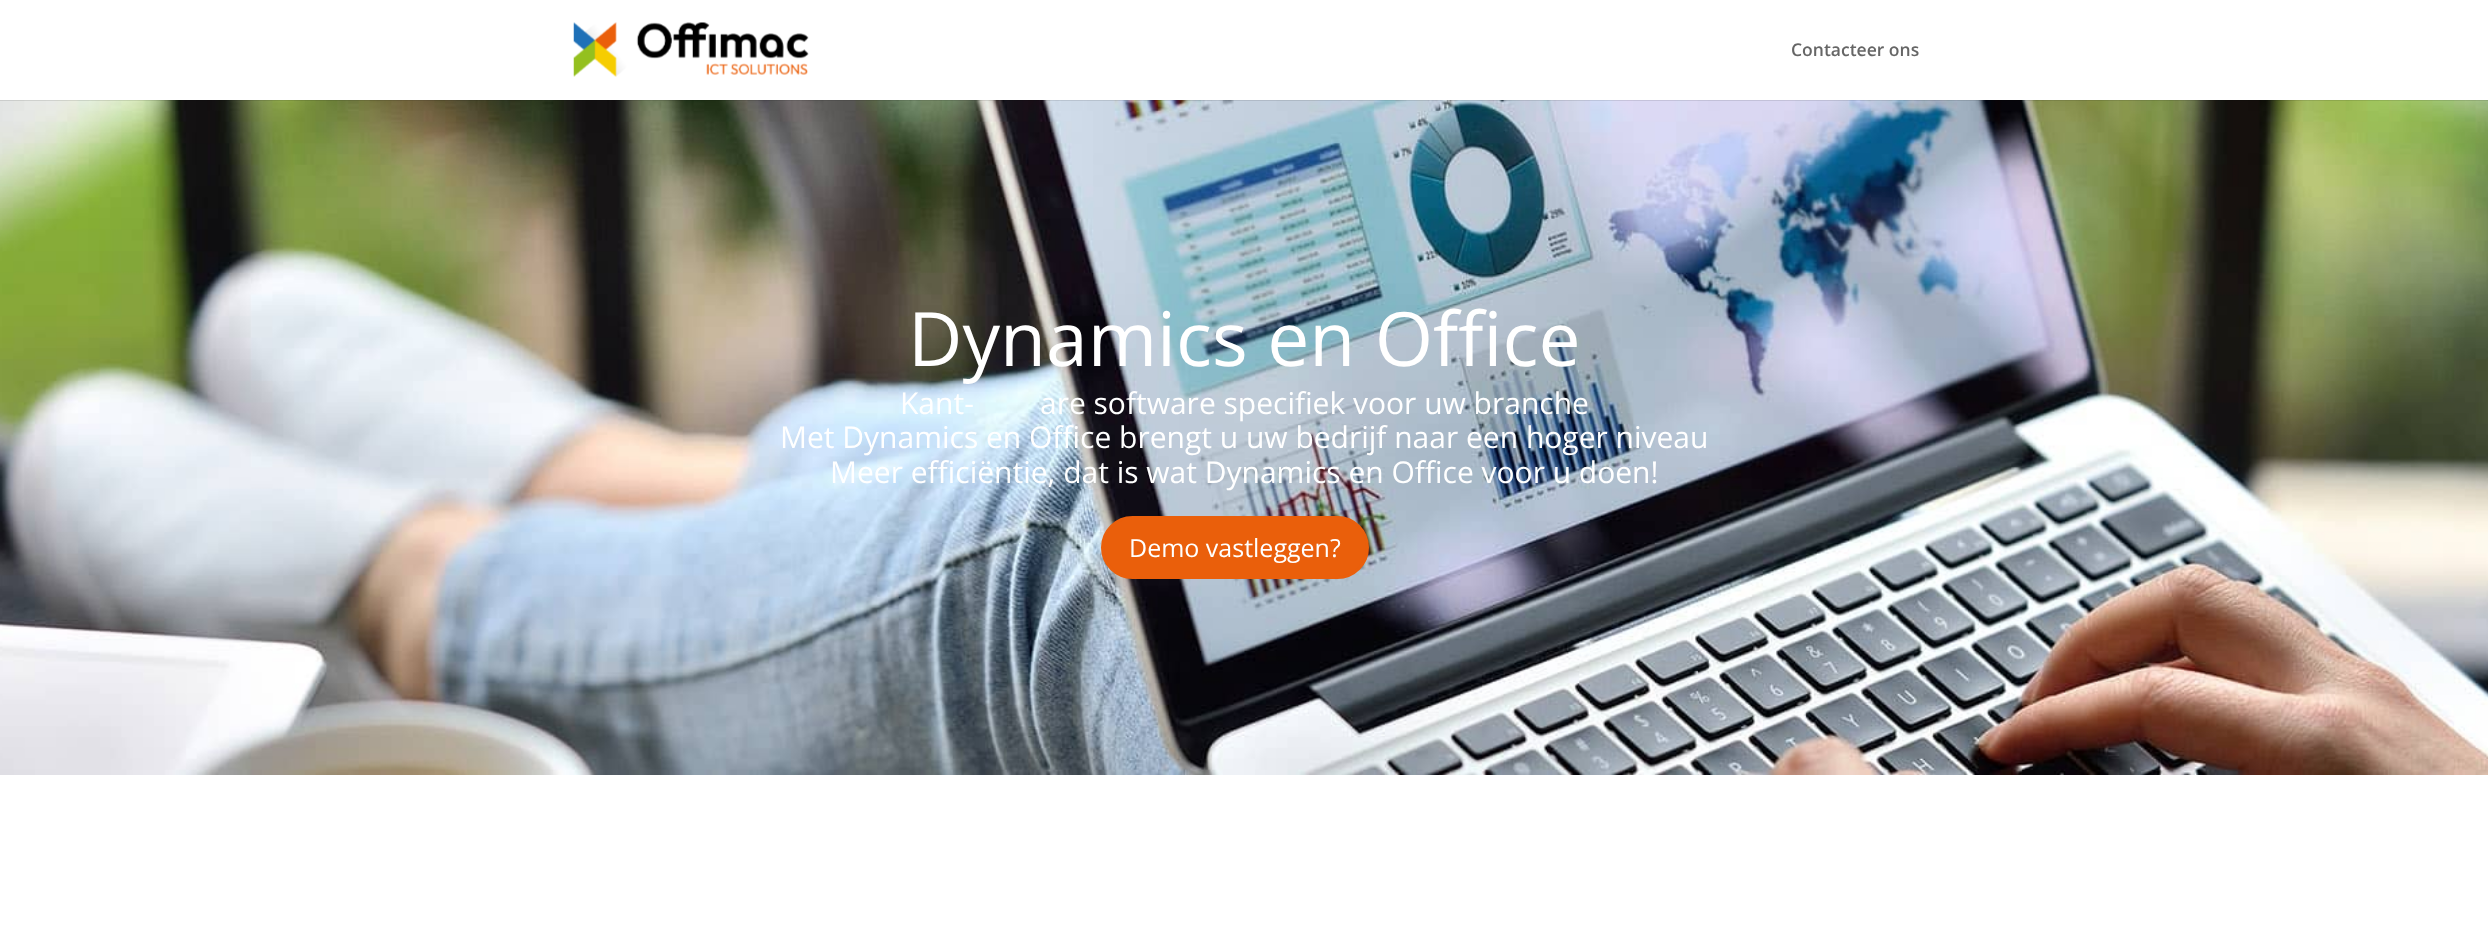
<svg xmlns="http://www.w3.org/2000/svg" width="2488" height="950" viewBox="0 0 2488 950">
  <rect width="100%" height="100%" fill="#ffffff"/>
  <image x="0" y="100" width="2488" height="675" href="img2.png"/>
  <path d="M0 100V101H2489V1V100Z" fill="#000000" fill-opacity="0.1"/>
  <image x="573" y="22" width="236" height="55" href="img1.png"/>
  <text x="1791" y="56" font-family="Open Sans" font-size="17.5" font-weight="600" fill="#666666">Contacteer ons</text>
  <text x="908" y="366" font-family="Open Sans" font-size="75" fill="#ffffff">Dynamics en Office</text>
  <text x="900" y="414" font-family="Open Sans" font-size="30" fill="#ffffff">Kant-</text>
  <text x="1040" y="414" font-family="Open Sans" font-size="30" fill="#ffffff">are software specifiek voor uw branche</text>
  <text x="780" y="448" font-family="Open Sans" font-size="30" fill="#ffffff">Met Dynamics en Office brengt u uw bedrijf naar een hoger niveau</text>
  <text x="830" y="483" font-family="Open Sans" font-size="30" fill="#ffffff">Meer efficiëntie, dat is wat Dynamics en Office voor u doen!</text>
  <rect x="1102.5" y="517.5" width="265" height="60" rx="30" fill="#ea5f0b" stroke="#ea5f0b" stroke-width="3"/>
  <text x="1129" y="557" font-family="Open Sans" font-size="25" fill="#ffffff">Demo vastleggen?</text>
</svg>
